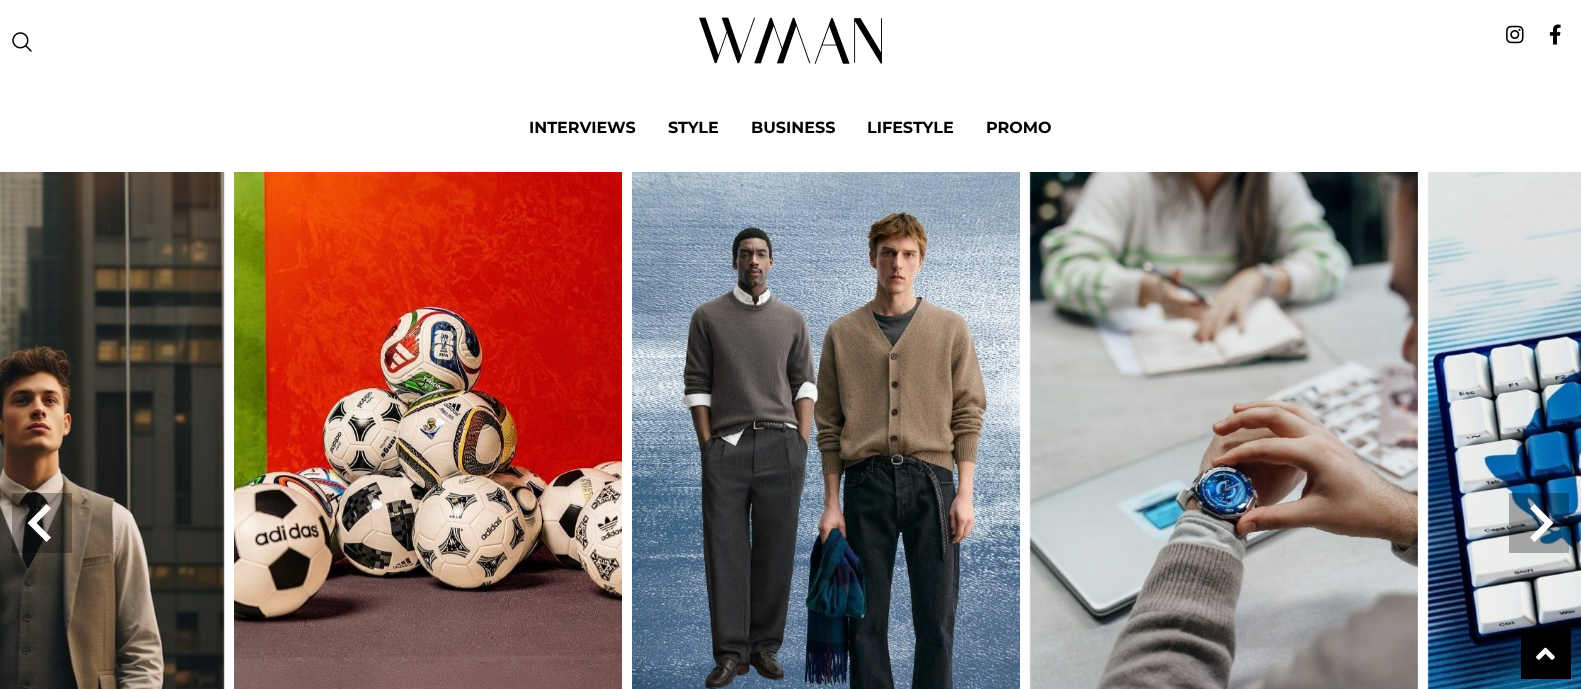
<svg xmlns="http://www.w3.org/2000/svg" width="1581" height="689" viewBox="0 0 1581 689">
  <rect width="100%" height="100%" fill="#ffffff"/>
  <image x="12" y="32" width="20" height="20" href="img1.png"/>
  <image x="699" y="17" width="183" height="47" href="img2.png"/>
  <image x="1506" y="25" width="18" height="19" href="img3.png"/>
  <image x="1549" y="24" width="12" height="21" href="img4.png"/>
  <text x="529" y="133" font-family="Montserrat" font-size="16" font-weight="bold" fill="#000000">INTERVIEWS</text>
  <text x="668" y="133" font-family="Montserrat" font-size="16" font-weight="bold" fill="#000000">STYLE</text>
  <text x="751" y="133" font-family="Montserrat" font-size="16" font-weight="bold" fill="#000000">BUSINESS</text>
  <text x="867" y="133" font-family="Montserrat" font-size="16" font-weight="bold" fill="#000000">LIFESTYLE</text>
  <text x="986" y="133" font-family="Montserrat" font-size="16" font-weight="bold" fill="#000000">PROMO</text>
  <image x="0" y="172" width="225" height="517" href="img5.png"/>
  <image x="234" y="172" width="388" height="517" href="img6.png"/>
  <image x="632" y="172" width="388" height="517" href="img7.png"/>
  <image x="1029" y="172" width="389" height="517" href="img8.png"/>
  <image x="1427" y="172" width="154" height="517" href="img9.png"/>
  <rect x="12" y="493" width="60" height="60" fill="#000000" fill-opacity="0.3"/>
  <path d="M46.5 504L51 508.5L36.5 523L51 537.5L46.5 542L27.5 523Z" fill="#ffffff"/>
  <rect x="1509" y="493" width="60" height="60" fill="#000000" fill-opacity="0.3"/>
  <path d="M1534.5 504L1530 508.5L1544.5 523L1530 537.5L1534.5 542L1553.5 523Z" fill="#ffffff"/>
  <rect x="1521" y="629" width="50" height="50" fill="#000000"/>
  <image x="1536" y="647" width="19" height="13" href="img10.png"/>
</svg>
